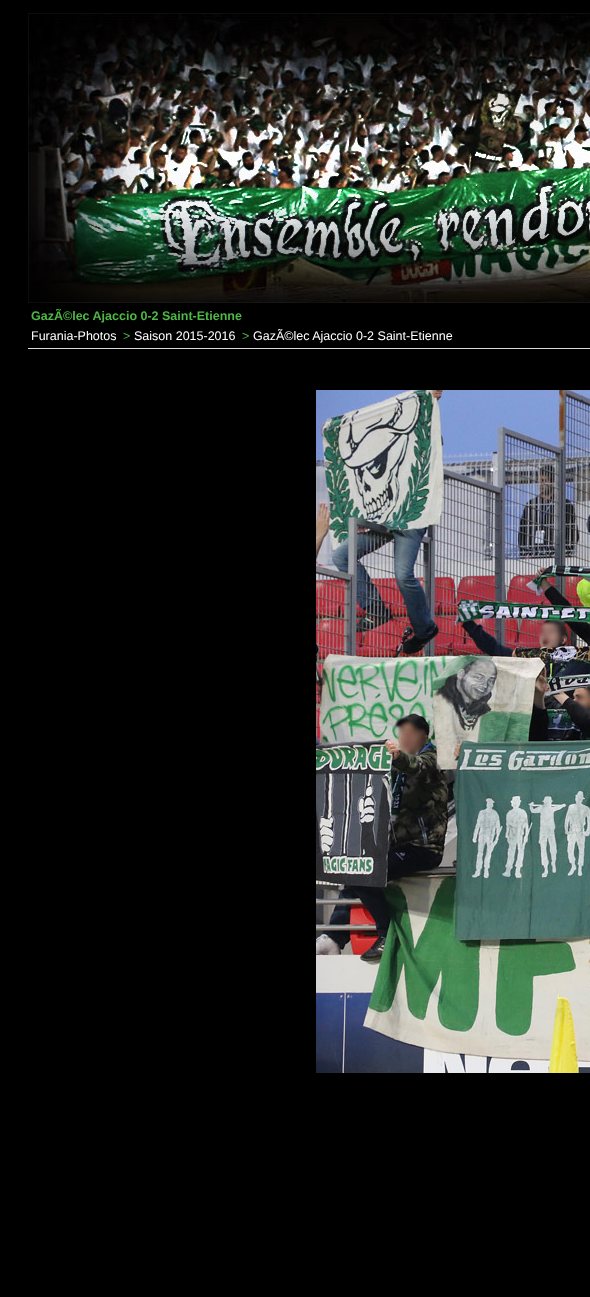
<svg xmlns="http://www.w3.org/2000/svg" width="590" height="1297" viewBox="0 0 590 1297">
  <rect width="100%" height="100%" fill="#000000"/>
  <image x="28" y="13" width="562" height="290" href="img1.png"/>
  <text x="31" y="320" font-family="Liberation Sans" font-size="12.5" font-weight="bold" fill="#4eb845">GazÃ©lec Ajaccio 0-2 Saint-Etienne</text>
  <rect x="28" y="348" width="562" height="1" fill="#dddddd"/>
  <text x="31" y="340" font-family="Liberation Sans" font-size="12.5" fill="#ffffff">Furania-Photos</text>
  <text x="123" y="340" font-family="Liberation Sans" font-size="12.5" fill="#4eb845">&gt;</text>
  <text x="134" y="340" font-family="Liberation Sans" font-size="12.5" fill="#ffffff">Saison 2015-2016</text>
  <text x="242" y="340" font-family="Liberation Sans" font-size="12.5" fill="#4eb845">&gt;</text>
  <text x="253" y="340" font-family="Liberation Sans" font-size="12.5" fill="#ffffff">GazÃ©lec Ajaccio 0-2 Saint-Etienne</text>
  <image x="316" y="390" width="274" height="683" href="img2.png"/>
</svg>
